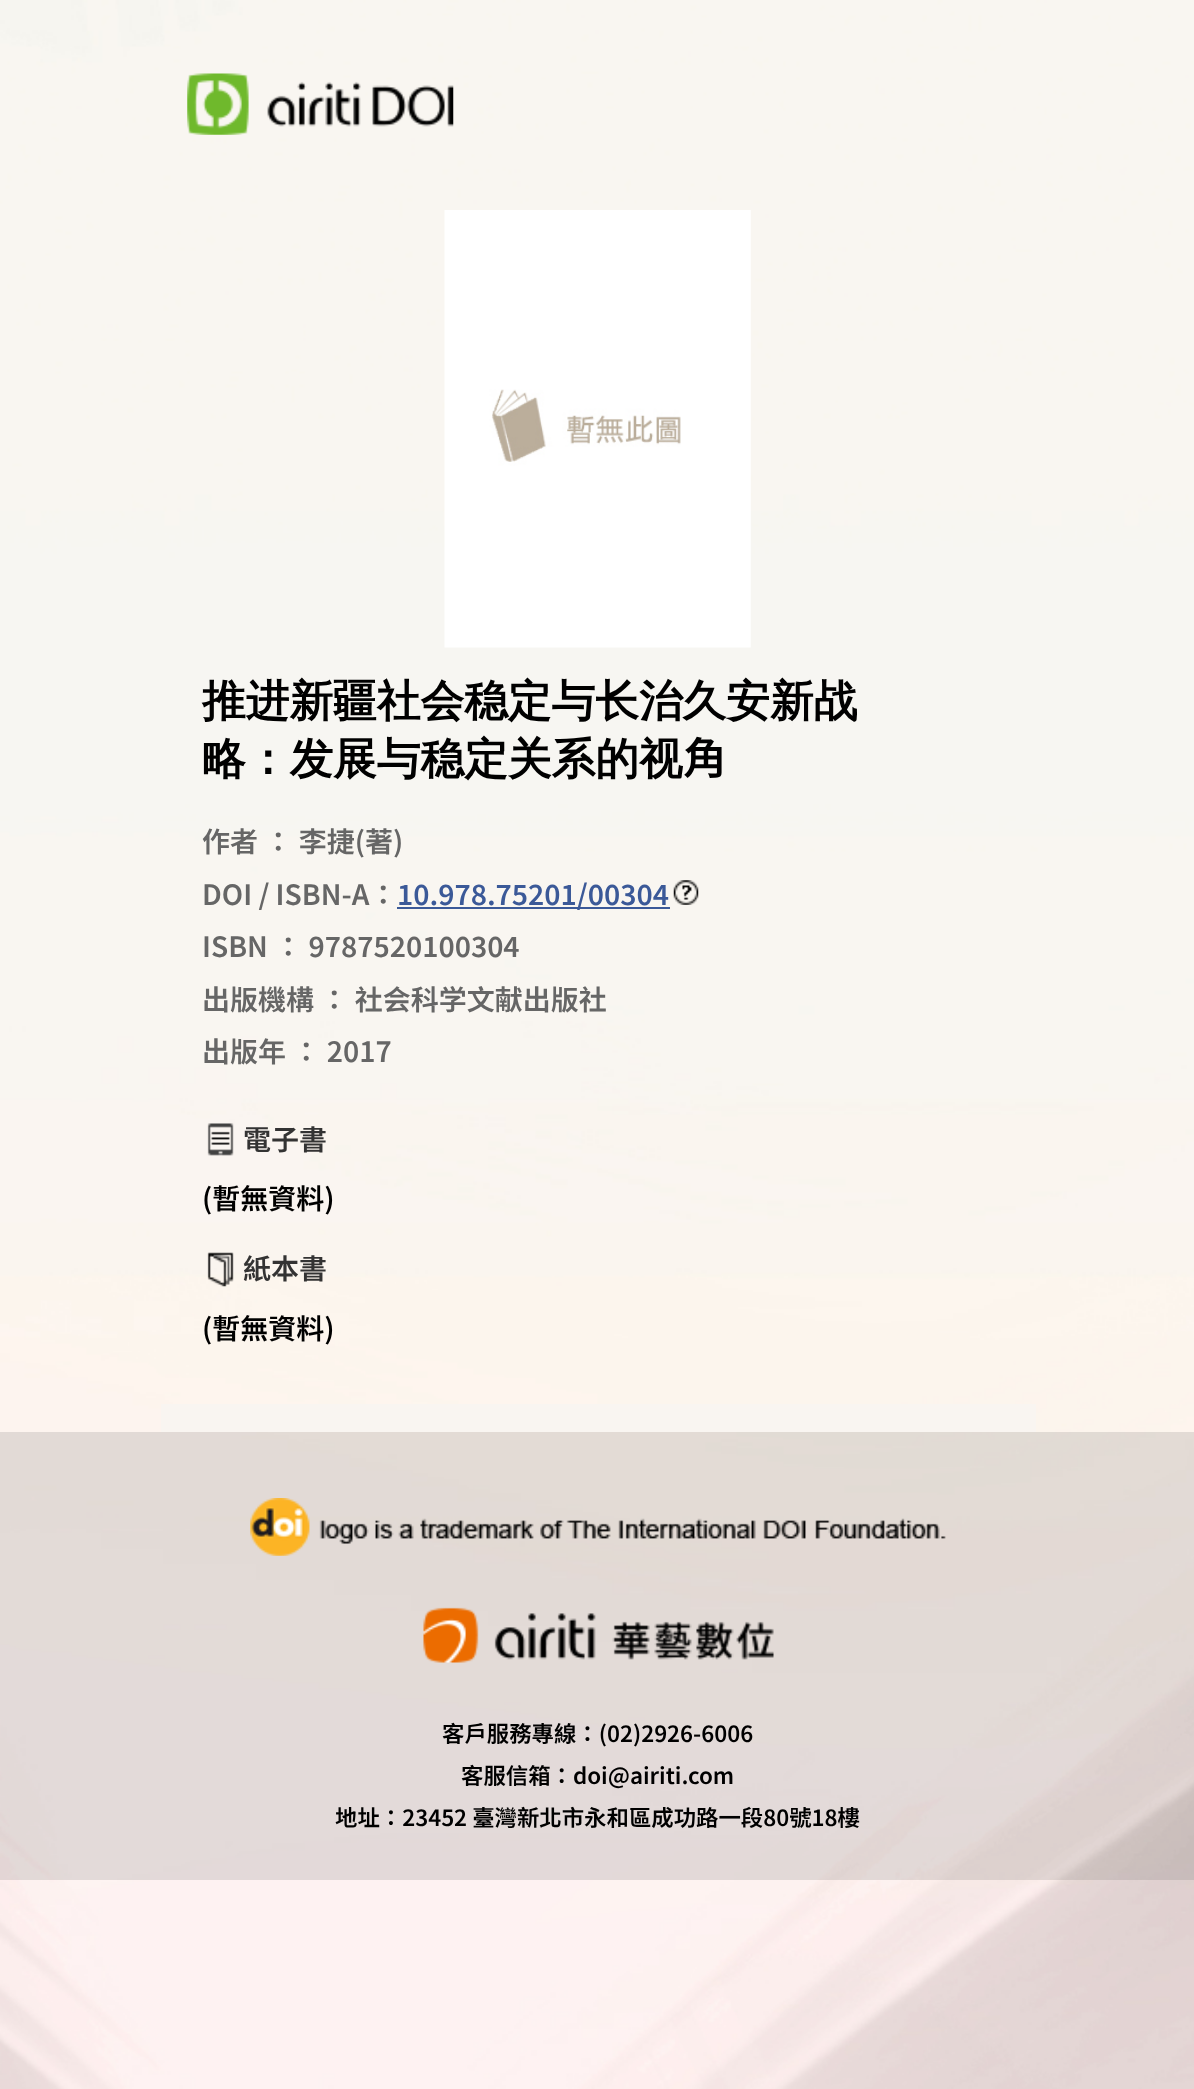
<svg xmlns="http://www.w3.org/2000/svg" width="1194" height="2089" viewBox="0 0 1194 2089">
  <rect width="100%" height="100%" fill="#ffffff"/>
  <image x="0" y="0" width="1194" height="2089" href="img1.png"/>
  <image x="187" y="73" width="267" height="62" href="img2.png"/>
  <image x="444" y="210" width="307" height="438" href="img3.png"/>
  <text x="202" y="716" font-family="WenQuanYi Zen Hei" font-size="43.7" font-weight="bold" fill="#000000">推进新疆社会稳定与长治久安新战</text>
  <text x="202" y="774" font-family="WenQuanYi Zen Hei" font-size="43.7" font-weight="bold" fill="#000000">略：发展与稳定关系的视</text>
  <text x="683" y="774" font-family="Noto Sans TC" font-size="43.7" font-weight="600" fill="#000000">角</text>
  <text x="202" y="852" font-family="Noto Sans TC" font-size="28" font-weight="600" fill="#666666">作者 ： 李捷(著)</text>
  <text x="202" y="905" font-family="Noto Sans TC" font-size="28" font-weight="600" fill="#666666">DOI / ISBN-A：</text>
  <rect x="397" y="907" width="273" height="2" fill="#3b5998"/>
  <text x="397" y="905" font-family="Noto Sans TC" font-size="28" font-weight="600" fill="#3b5998">10.978.75201/00304</text>
  <image x="673" y="880" width="26" height="25" href="img4.png"/>
  <text x="202" y="957" font-family="Noto Sans TC" font-size="28" font-weight="600" fill="#666666">ISBN ： 9787520100304</text>
  <text x="202" y="1010" font-family="Noto Sans TC" font-size="28" font-weight="600" fill="#666666">出版機構 ： 社会科学文献出版社</text>
  <text x="202" y="1062" font-family="Noto Sans TC" font-size="28" font-weight="600" fill="#666666">出版年 ： 2017</text>
  <image x="207" y="1123" width="27" height="33" href="img5.png"/>
  <text x="243" y="1150" font-family="Noto Sans TC" font-size="28" font-weight="600" fill="#333333">電子書</text>
  <text x="202" y="1209" font-family="Noto Sans TC" font-size="28" font-weight="600" fill="#000000">(暫無資料)</text>
  <image x="207" y="1252" width="27" height="35" href="img6.png"/>
  <text x="243" y="1279" font-family="Noto Sans TC" font-size="28" font-weight="600" fill="#333333">紙本書</text>
  <text x="202" y="1339" font-family="Noto Sans TC" font-size="28" font-weight="600" fill="#000000">(暫無資料)</text>
  <rect x="161" y="1404" width="875" height="28" fill="#f9f5f1"/>
  <rect x="0" y="1432" width="1194" height="448" fill="#4d4d4d" fill-opacity="0.15"/>
  <image x="250" y="1498" width="696" height="58" href="img7.png"/>
  <image x="423" y="1607" width="351" height="56" href="img8.png"/>
  <text x="442" y="1742" font-family="Noto Sans TC" font-size="22.4" font-weight="600" fill="#000000">客戶服務專線：(02)2926-6006</text>
  <text x="461" y="1784" font-family="Noto Sans TC" font-size="22.4" font-weight="600" fill="#000000">客服信箱：doi@airiti.com</text>
  <text x="335" y="1826" font-family="Noto Sans TC" font-size="22.4" font-weight="600" fill="#000000">地址：23452 臺灣新北市永和區成功路一段80號18樓</text>
</svg>
